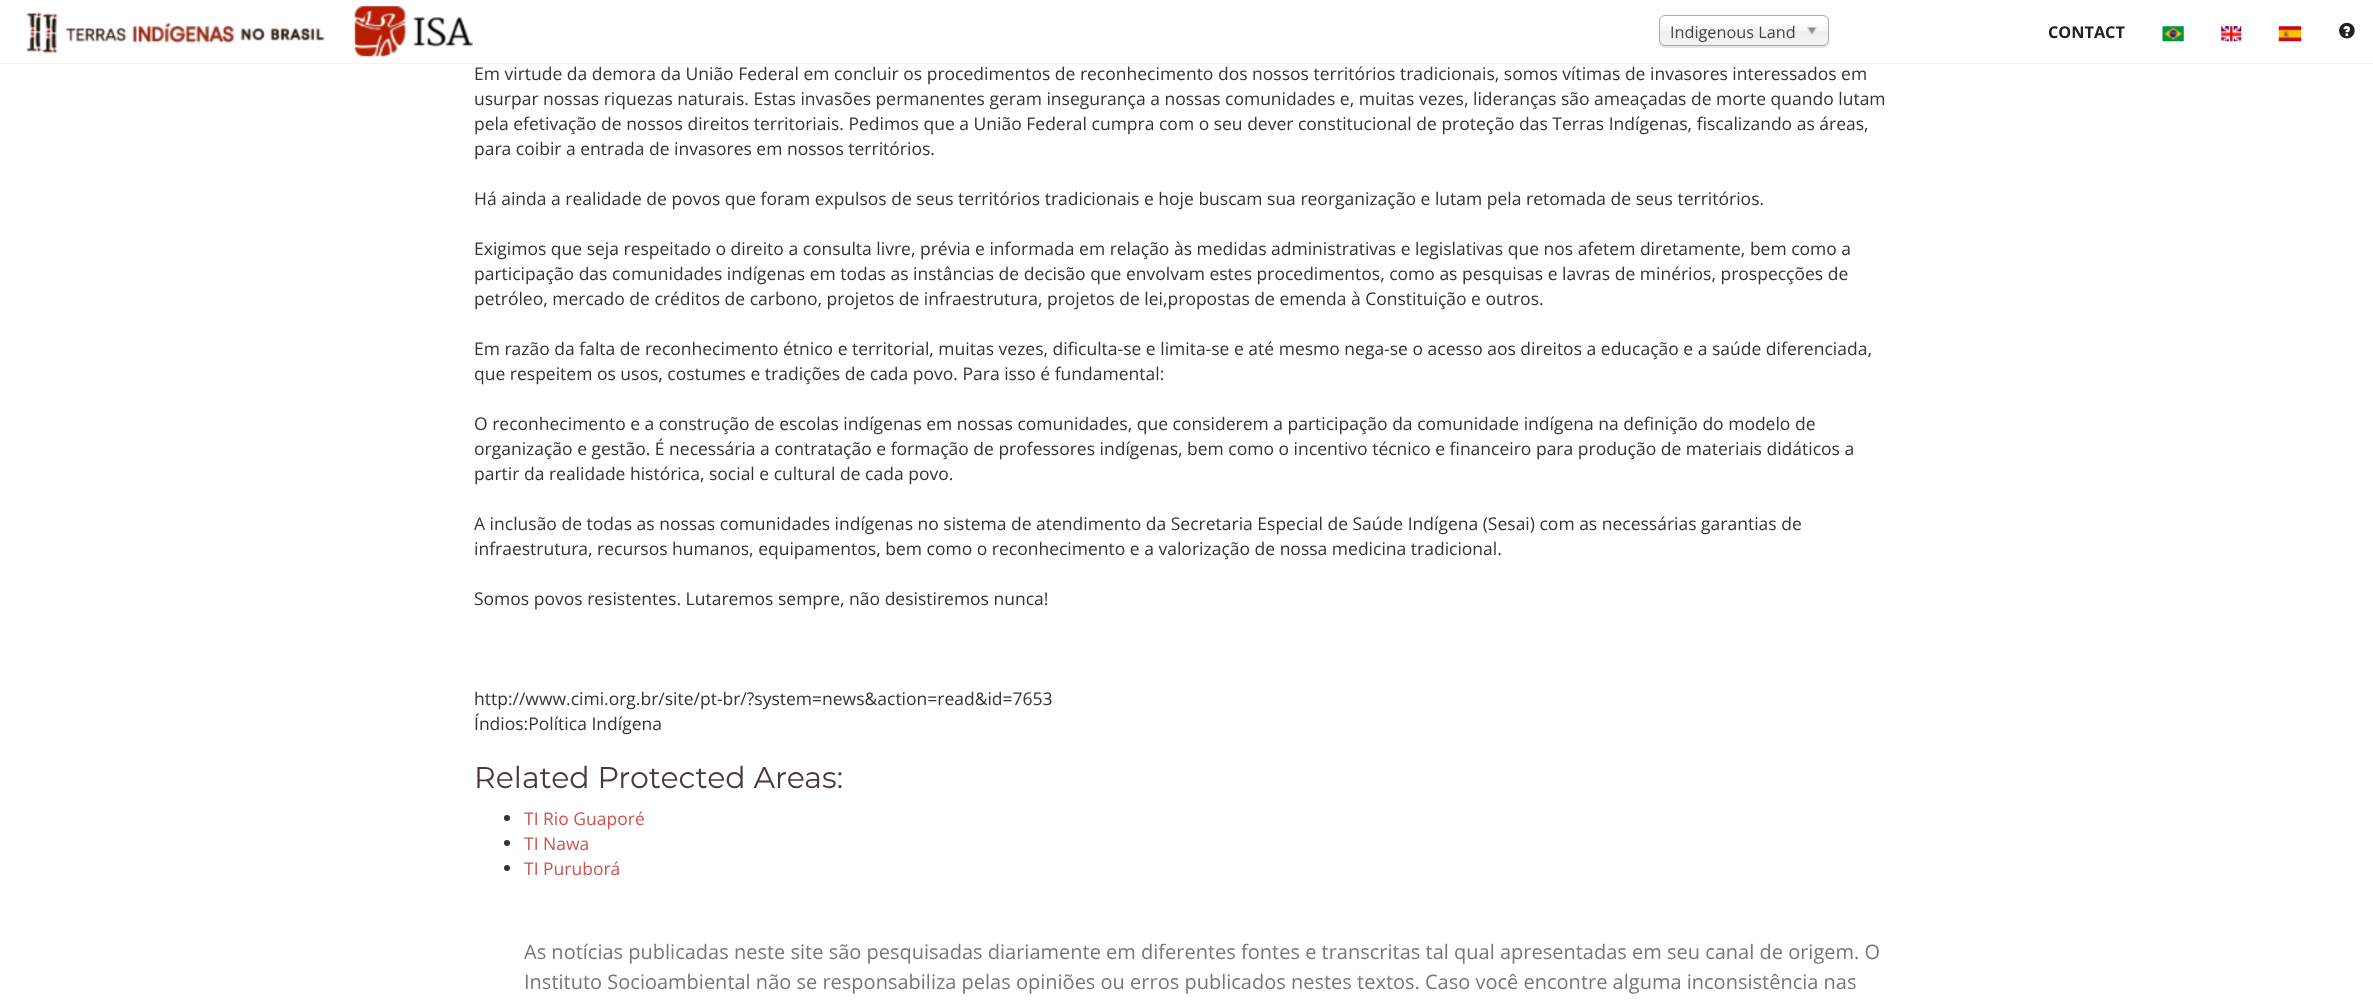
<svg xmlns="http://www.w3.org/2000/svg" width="2373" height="1006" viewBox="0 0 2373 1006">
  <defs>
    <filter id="blur1" x="-50%" y="-200%" width="200%" height="500%"><feGaussianBlur stdDeviation="0.5"/></filter>
    <linearGradient id="g1" gradientUnits="userSpaceOnUse" x1="1744" y1="16" x2="1744" y2="45"><stop offset="0.2" stop-color="#ffffff"/><stop offset="0.5" stop-color="#f6f6f6"/><stop offset="0.52" stop-color="#eeeeee"/><stop offset="1" stop-color="#f4f4f4"/></linearGradient>
  </defs>
  <rect width="100%" height="100%" fill="#ffffff"/>
  <rect x="0" y="63" width="2373" height="1" fill="#f4f4f4"/>
  <image x="26" y="12" width="299" height="42" href="img1.png"/>
  <image x="354" y="6" width="119" height="51" href="img2.png"/>
  <rect x="1659" y="16" width="170" height="32" rx="6" fill="#000000" fill-opacity="0.1" filter="url(#blur1)"/>
  <rect x="1660" y="16" width="168" height="29" rx="5" fill="url(#g1)"/>
  <rect x="1659.5" y="15.5" width="169" height="30" rx="5.5" fill="none" stroke="#aaaaaa"/>
  <text x="1670" y="38" font-family="Open Sans" font-size="16.25" fill="#444444">Indigenous Land</text>
  <image x="1807" y="27" width="10" height="8" href="img3.png"/>
  <text x="2048" y="38" font-family="Open Sans" font-size="16.25" font-weight="bold" fill="#222222">CONTACT</text>
  <image x="2162" y="26" width="22" height="16" href="img4.png"/>
  <image x="2221" y="26" width="21" height="16" href="img5.png"/>
  <image x="2278" y="26" width="24" height="16" href="img6.png"/>
  <image x="2339" y="22" width="16" height="17" href="img7.png"/>
  <text x="474" y="80" font-family="Open Sans" font-size="17.5" fill="#333333">Em virtude da demora da União Federal em concluir os procedimentos de reconhecimento dos nossos territórios tradicionais, somos vítimas de invasores interessados em</text>
  <text x="474" y="105" font-family="Open Sans" font-size="17.5" fill="#333333">usurpar nossas riquezas naturais. Estas invasões permanentes geram insegurança a nossas comunidades e, muitas vezes, lideranças são ameaçadas de morte quando lutam</text>
  <text x="474" y="130" font-family="Open Sans" font-size="17.5" fill="#333333">pela efetivação de nossos direitos territoriais. Pedimos que a União Federal cumpra com o seu dever constitucional de proteção das Terras Indígenas, fiscalizando as áreas,</text>
  <text x="474" y="155" font-family="Open Sans" font-size="17.5" fill="#333333">para coibir a entrada de invasores em nossos territórios.</text>
  <text x="474" y="205" font-family="Open Sans" font-size="17.5" fill="#333333">Há ainda a realidade de povos que foram expulsos de seus territórios tradicionais e hoje buscam sua reorganização e lutam pela retomada de seus territórios.</text>
  <text x="474" y="255" font-family="Open Sans" font-size="17.5" fill="#333333">Exigimos que seja respeitado o direito a consulta livre, prévia e informada em relação às medidas administrativas e legislativas que nos afetem diretamente, bem como a</text>
  <text x="474" y="280" font-family="Open Sans" font-size="17.5" fill="#333333">participação das comunidades indígenas em todas as instâncias de decisão que envolvam estes procedimentos, como as pesquisas e lavras de minérios, prospecções de</text>
  <text x="474" y="305" font-family="Open Sans" font-size="17.5" fill="#333333">petróleo, mercado de créditos de carbono, projetos de infraestrutura, projetos de lei,propostas de emenda à Constituição e outros.</text>
  <text x="474" y="355" font-family="Open Sans" font-size="17.5" fill="#333333">Em razão da falta de reconhecimento étnico e territorial, muitas vezes, dificulta-se e limita-se e até mesmo nega-se o acesso aos direitos a educação e a saúde diferenciada,</text>
  <text x="474" y="380" font-family="Open Sans" font-size="17.5" fill="#333333">que respeitem os usos, costumes e tradições de cada povo. Para isso é fundamental:</text>
  <text x="474" y="430" font-family="Open Sans" font-size="17.5" fill="#333333">O reconhecimento e a construção de escolas indígenas em nossas comunidades, que considerem a participação da comunidade indígena na definição do modelo de</text>
  <text x="474" y="455" font-family="Open Sans" font-size="17.5" fill="#333333">organização e gestão. É necessária a contratação e formação de professores indígenas, bem como o incentivo técnico e financeiro para produção de materiais didáticos a</text>
  <text x="474" y="480" font-family="Open Sans" font-size="17.5" fill="#333333">partir da realidade histórica, social e cultural de cada povo.</text>
  <text x="474" y="530" font-family="Open Sans" font-size="17.5" fill="#333333">A inclusão de todas as nossas comunidades indígenas no sistema de atendimento da Secretaria Especial de Saúde Indígena (Sesai) com as necessárias garantias de</text>
  <text x="474" y="555" font-family="Open Sans" font-size="17.5" fill="#333333">infraestrutura, recursos humanos, equipamentos, bem como o reconhecimento e a valorização de nossa medicina tradicional.</text>
  <text x="474" y="605" font-family="Open Sans" font-size="17.5" fill="#333333">Somos povos resistentes. Lutaremos sempre, não desistiremos nunca!</text>
  <text x="474" y="705" font-family="Open Sans" font-size="17.5" fill="#333333">http://www.cimi.org.br/site/pt-br/?system=news&amp;action=read&amp;id=7653</text>
  <text x="474" y="730" font-family="Open Sans" font-size="17.5" fill="#333333">Índios:Política Indígena</text>
  <text x="474" y="788" font-family="Montserrat" font-size="30" font-weight="100" fill="#483a3a">Related Protected Areas:</text>
  <circle cx="507" cy="818" r="3" fill="#333333"/>
  <text x="524" y="825" font-family="Open Sans" font-size="17.5" fill="#ce534d">TI Rio Guaporé</text>
  <circle cx="507" cy="843" r="3" fill="#333333"/>
  <text x="524" y="850" font-family="Open Sans" font-size="17.5" fill="#ce534d">TI Nawa</text>
  <circle cx="507" cy="868" r="3" fill="#333333"/>
  <text x="524" y="875" font-family="Open Sans" font-size="17.5" fill="#ce534d">TI Puruborá</text>
  <text x="524" y="959" font-family="Open Sans" font-size="20" fill="#777777">As notícias publicadas neste site são pesquisadas diariamente em diferentes fontes e transcritas tal qual apresentadas em seu canal de origem. O</text>
  <text x="524" y="989" font-family="Open Sans" font-size="20" fill="#777777">Instituto Socioambiental não se responsabiliza pelas opiniões ou erros publicados nestes textos. Caso você encontre alguma inconsistência nas</text>
</svg>
